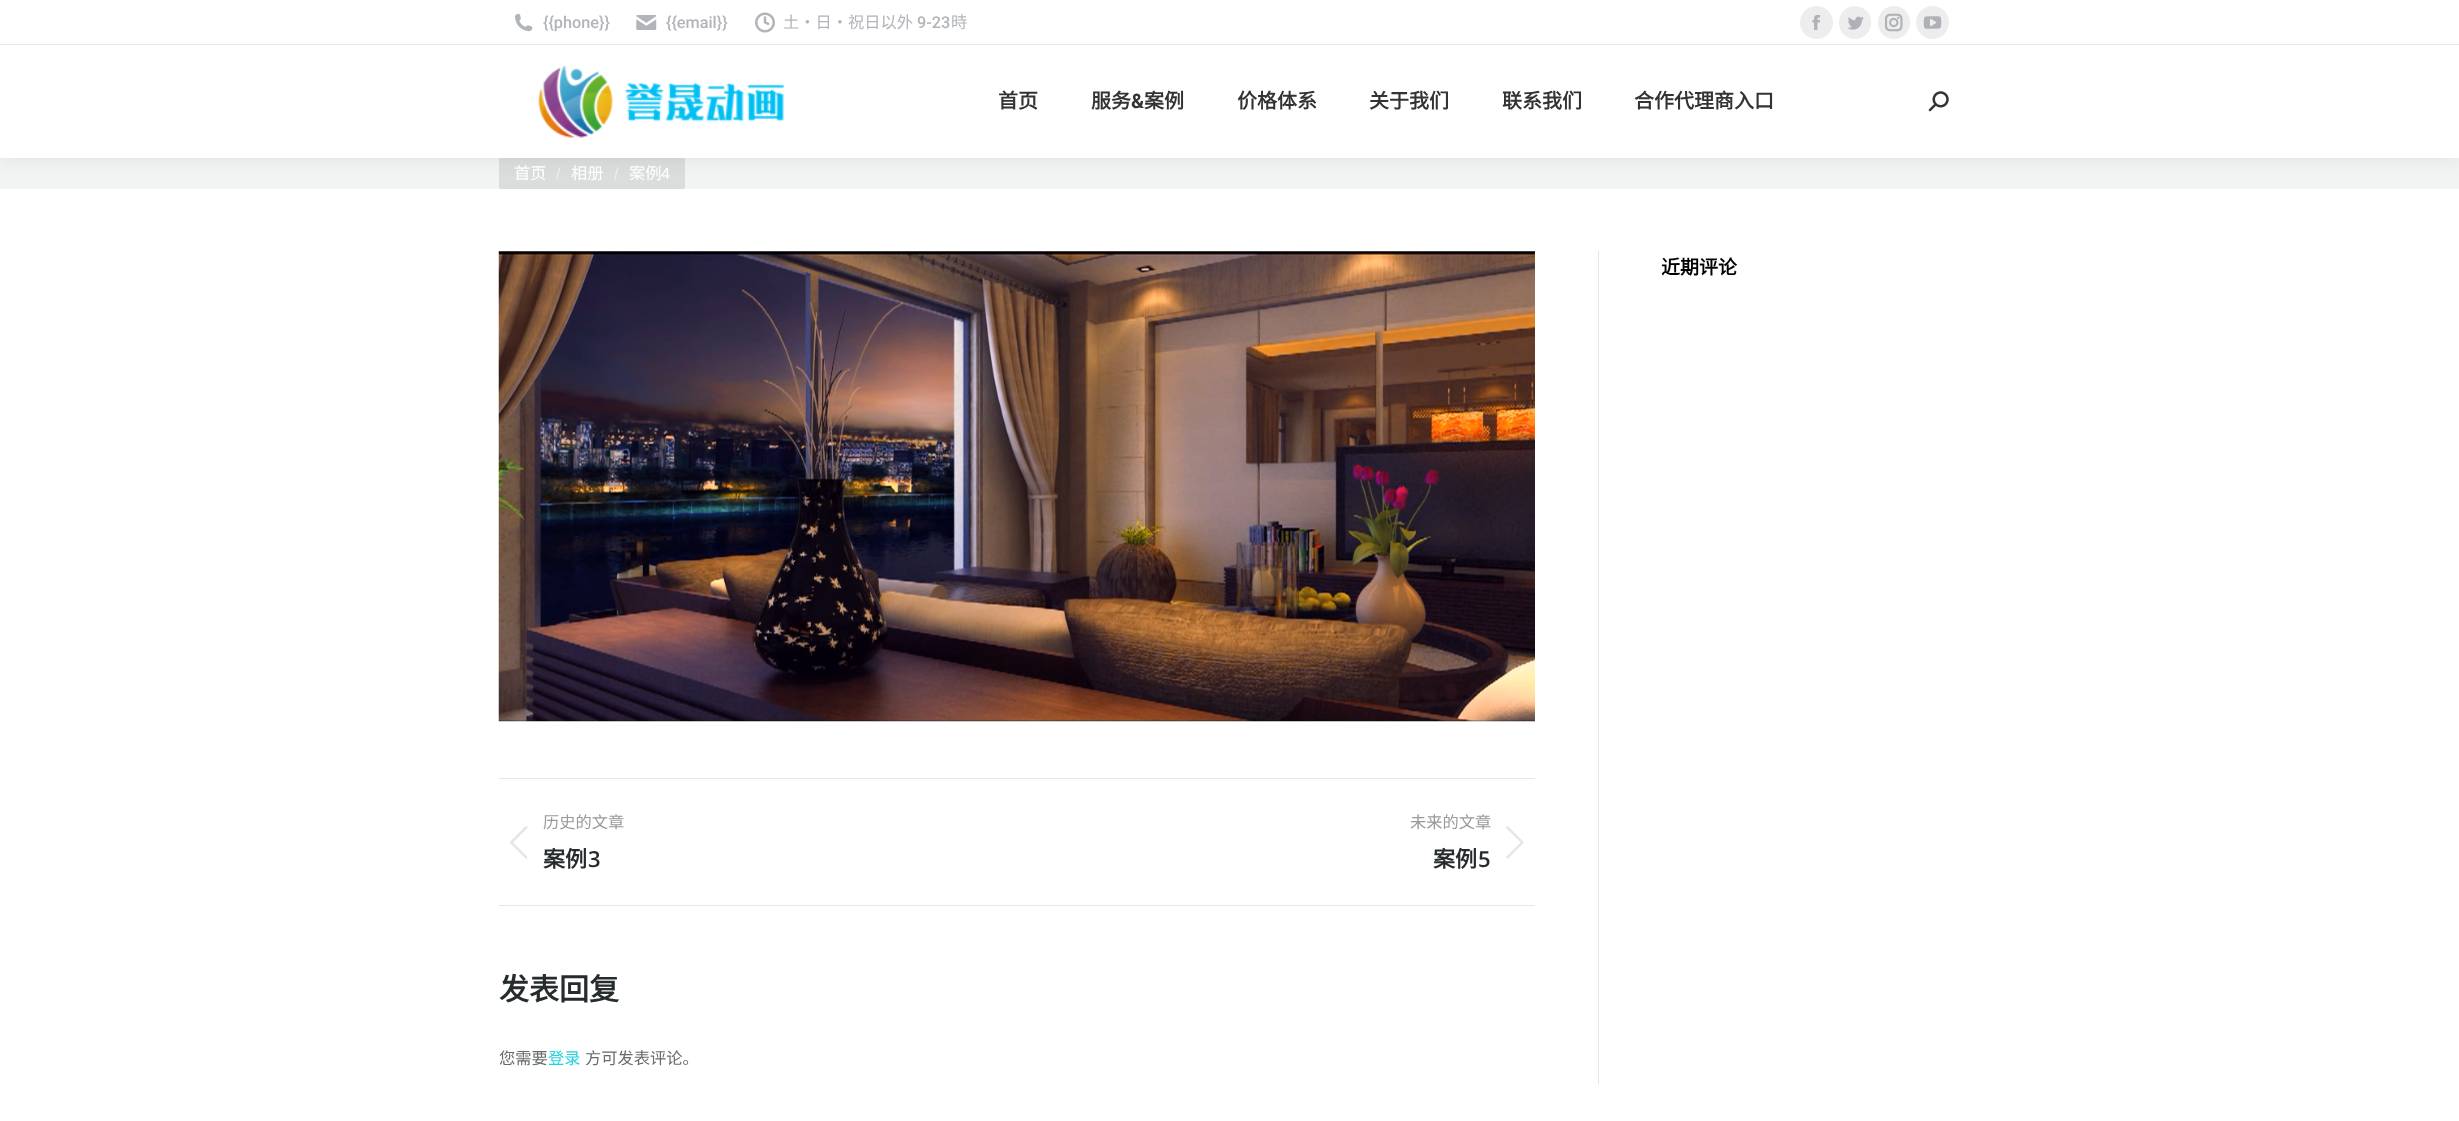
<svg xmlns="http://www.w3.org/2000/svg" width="2459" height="1121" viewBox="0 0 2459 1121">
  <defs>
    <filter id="blur1" x="-50%" y="-200%" width="200%" height="500%"><feGaussianBlur stdDeviation="9.5"/></filter>
  </defs>
  <rect width="100%" height="100%" fill="#ffffff"/>
  <rect x="0" y="158" width="2459" height="31" fill="#f2f3f3"/>
  <rect x="499" y="158" width="186" height="31" rx="1" fill="#dbdddd"/>
  <rect x="-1" y="-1" width="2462" height="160" fill="#000000" fill-opacity="0.07" filter="url(#blur1)"/>
  <rect x="0" y="0" width="2459" height="158" fill="#ffffff"/>
  <image x="515" y="13" width="18" height="19" href="img1.png"/>
  <text x="543" y="28" font-family="Roboto" font-size="16.25" font-weight="500" fill="#b1b4b8">{{phone}}</text>
  <image x="636" y="15" width="21" height="15" href="img2.png"/>
  <text x="666" y="28" font-family="Roboto" font-size="16.25" font-weight="500" fill="#b1b4b8">{{email}}</text>
  <image x="755" y="12" width="20" height="21" href="img3.png"/>
  <text x="783" y="28" font-family="Noto Sans CJK SC" font-size="16.25" fill="#b1b4b8">土・日・祝日以外</text>
  <text x="917" y="28" font-family="Roboto" font-size="16.25" font-weight="500" fill="#b1b4b8">9-23</text>
  <text x="951" y="28" font-family="Noto Sans CJK SC" font-size="16.25" fill="#b1b4b8">時</text>
  <circle cx="1816.5" cy="22.5" r="16.5" fill="#ededed"/>
  <image x="1812" y="15" width="8" height="15" href="img4.png"/>
  <rect x="1839" y="6" width="32" height="33" rx="16" fill="#ededed"/>
  <image x="1847" y="16" width="17" height="14" href="img5.png"/>
  <rect x="1878" y="6" width="32" height="33" rx="16" fill="#ededed"/>
  <image x="1885" y="13" width="18" height="19" href="img6.png"/>
  <circle cx="1932.5" cy="22.5" r="16.5" fill="#ededed"/>
  <image x="1923" y="16" width="19" height="13" href="img7.png"/>
  <rect x="0" y="44" width="2459" height="1" fill="#e9e9e9"/>
  <image x="538" y="66" width="246" height="72" href="img8.png"/>
  <text x="998" y="108" font-family="Noto Sans CJK SC" font-size="20" font-weight="bold" fill="#333333">首页</text>
  <text x="1091" y="108" font-family="Noto Sans CJK SC" font-size="20" font-weight="bold" fill="#333333">服务</text>
  <text x="1131" y="108" font-family="Roboto" font-size="20" font-weight="bold" fill="#333333">&amp;</text>
  <text x="1144" y="108" font-family="Noto Sans CJK SC" font-size="20" font-weight="bold" fill="#333333">案例</text>
  <text x="1237" y="108" font-family="Noto Sans CJK SC" font-size="20" font-weight="bold" fill="#333333">价格体系</text>
  <text x="1369" y="108" font-family="Noto Sans CJK SC" font-size="20" font-weight="bold" fill="#333333">关于我们</text>
  <text x="1502" y="108" font-family="Noto Sans CJK SC" font-size="20" font-weight="bold" fill="#333333">联系我们</text>
  <text x="1634" y="108" font-family="Noto Sans CJK SC" font-size="20" font-weight="bold" fill="#333333">合作代理商入口</text>
  <image x="1928" y="91" width="21" height="21" href="img9.png"/>
  <text x="514" y="179" font-family="Noto Sans CJK SC" font-size="16.25" fill="#ffffff">首页</text>
  <text x="556" y="179" font-family="Liberation Sans" font-size="16.25" fill="#edeeee">/</text>
  <text x="571" y="179" font-family="Noto Sans CJK SC" font-size="16.25" fill="#ffffff">相册</text>
  <text x="614" y="179" font-family="Liberation Sans" font-size="16.25" fill="#edeeee">/</text>
  <text x="629" y="179" font-family="Noto Sans CJK SC" font-size="16.25" fill="#ffffff">案例</text>
  <text x="661" y="179" font-family="Liberation Sans" font-size="16.25" fill="#ffffff">4</text>
  <rect x="1598" y="251" width="1" height="833" fill="#e6e6e6"/>
  <text x="1661" y="274" font-family="Noto Sans CJK SC" font-size="19" font-weight="bold" fill="#000000">近期评论</text>
  <image x="498" y="251" width="1037" height="471" href="img10.png"/>
  <rect x="499" y="778" width="1036" height="1" fill="#e6e6e6"/>
  <rect x="499" y="905" width="1036" height="1" fill="#e6e6e6"/>
  <text x="543" y="828" font-family="Noto Sans CJK SC" font-size="16.25" fill="#999999">历史的文章</text>
  <image x="510" y="826" width="18" height="33" href="img11.png"/>
  <text x="543" y="867" font-family="Noto Sans CJK SC" font-size="22" font-weight="bold" fill="#262b2e">案例</text>
  <text x="588" y="867" font-family="Open Sans" font-size="22" font-weight="600" fill="#262b2e">3</text>
  <text x="1410" y="828" font-family="Noto Sans CJK SC" font-size="16.25" fill="#999999">未来的文章</text>
  <text x="1433" y="867" font-family="Noto Sans CJK SC" font-size="22" font-weight="bold" fill="#262b2e">案例</text>
  <text x="1478" y="867" font-family="Open Sans" font-size="22" font-weight="600" fill="#262b2e">5</text>
  <image x="1506" y="826" width="18" height="33" href="img12.png"/>
  <text x="499" y="1000" font-family="Noto Sans CJK SC" font-size="30" font-weight="bold" fill="#262b2e">发表回复</text>
  <text x="499" y="1064" font-family="Noto Sans CJK SC" font-size="16.25" fill="#676b6d">您需要</text>
  <text x="548" y="1064" font-family="Noto Sans CJK SC" font-size="16.25" fill="#21d3e0">登录</text>
  <text x="585" y="1064" font-family="Noto Sans CJK SC" font-size="16.25" fill="#676b6d">方可发表评论。</text>
</svg>
